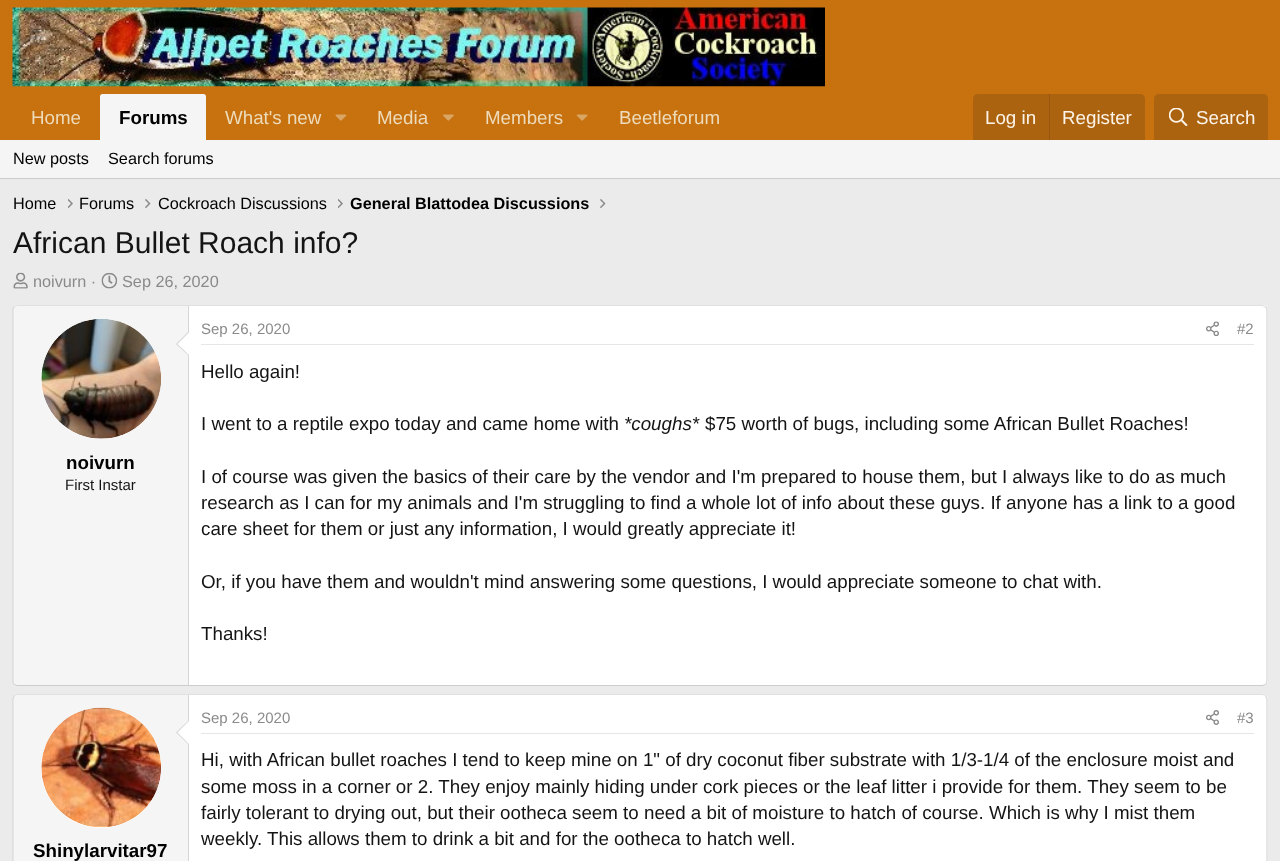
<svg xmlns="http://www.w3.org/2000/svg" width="1280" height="861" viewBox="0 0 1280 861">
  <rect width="100%" height="100%" fill="#ebebeb"/>
  <rect x="0" y="0" width="1280" height="140" fill="#c7710f"/>
  <image x="12" y="7" width="813" height="80" href="img1.png"/>
  <text x="31" y="124" font-family="Liberation Sans" font-size="18.75" fill="#eddbba">Home</text>
  <path d="M102.5 94H203.5C205 94 206 95 206 96.5V140H100V96.5C100 95 101 94 102.5 94Z" fill="#f5f5f5"/>
  <text x="119" y="124" font-family="Liberation Sans" font-size="18.75" font-weight="bold" fill="#000000">Forums</text>
  <text x="225" y="124" font-family="Liberation Sans" font-size="18.75" fill="#eddbba">What's new</text>
  <image x="335" y="114" width="12" height="7" href="img2.png"/>
  <text x="377" y="124" font-family="Liberation Sans" font-size="18.75" fill="#eddbba">Media</text>
  <image x="443" y="114" width="11" height="7" href="img3.png"/>
  <text x="485" y="124" font-family="Liberation Sans" font-size="18.75" fill="#eddbba">Members</text>
  <image x="576" y="114" width="12" height="7" href="img4.png"/>
  <text x="619" y="124" font-family="Liberation Sans" font-size="18.75" fill="#eddbba">Beetleforum</text>
  <path d="M978 94H1140C1143 94 1145 96 1145 99V140H973V99C973 96 975 94 978 94Z" fill="#ac6310"/>
  <text x="985" y="124" font-family="Liberation Sans" font-size="18.75" fill="#fcf4e8">Log in</text>
  <rect x="1049" y="94" width="1" height="46" fill="#955711"/>
  <text x="1062" y="124" font-family="Liberation Sans" font-size="18.75" fill="#fcf4e8">Register</text>
  <path d="M1159 94H1263C1266 94 1268 96 1268 99V140H1154V99C1154 96 1156 94 1159 94Z" fill="#ac6310"/>
  <image x="1169" y="108" width="19" height="18" href="img5.png"/>
  <text x="1196" y="124" font-family="Liberation Sans" font-size="18.75" fill="#fcf4e8">Search</text>
  <rect x="0" y="140" width="1280" height="38" fill="#f5f5f5"/>
  <rect x="0" y="178" width="1280" height="1" fill="#cccccc"/>
  <text x="13" y="164" font-family="Liberation Sans" font-size="16.25" fill="#000000">New posts</text>
  <text x="108" y="164" font-family="Liberation Sans" font-size="16.25" fill="#000000">Search forums</text>
  <text x="13" y="209" font-family="Liberation Sans" font-size="16.25" fill="#000000">Home</text>
  <image x="68" y="199" width="5" height="9" href="img6.png"/>
  <text x="79" y="209" font-family="Liberation Sans" font-size="16.25" fill="#000000">Forums</text>
  <image x="145" y="199" width="6" height="9" href="img7.png"/>
  <text x="158" y="209" font-family="Liberation Sans" font-size="16.25" fill="#000000">Cockroach Discussions</text>
  <image x="338" y="199" width="5" height="9" href="img6.png"/>
  <text x="350" y="209" font-family="Liberation Sans" font-size="16.25" font-weight="bold" fill="#000000">General Blattodea Discussions</text>
  <image x="600" y="199" width="6" height="9" href="img7.png"/>
  <text x="13" y="253" font-family="Liberation Sans" font-size="30" fill="#141414">African Bullet Roach info?</text>
  <image x="13" y="272" width="15" height="17" href="img8.png"/>
  <text x="33" y="287" font-family="Liberation Sans" font-size="16.25" fill="#8a8a8a">noivurn ·</text>
  <image x="101" y="272" width="17" height="17" href="img9.png"/>
  <text x="122" y="287" font-family="Liberation Sans" font-size="16.25" fill="#8a8a8a">Sep 26, 2020</text>
  <rect x="13" y="305" width="1255" height="381" rx="5" fill="#ffffff"/>
  <path d="M14.5 307L17.5 305.5H1262.5L1265.5 307" fill="none" stroke="#e0e0e0" stroke-width="1.2"/>
  <path d="M1265.5 307C1266.5 307.5 1267 309 1267 310V681C1267 682.5 1266.5 683.5 1265.5 684.5" fill="none" stroke="#d6d6d6" stroke-width="1.2"/>
  <path d="M1265.5 684.5L1262.5 685.5H17.5L14.5 684.5" fill="none" stroke="#cccccc" stroke-width="1.2"/>
  <path d="M14.5 684.5C13.5 683.5 13 682.5 13 681V310C13 309 13.5 307.5 14.5 307" fill="none" stroke="#d6d6d6" stroke-width="1.2"/>
  <path d="M18 306H189V685H18C16 685 14 683 14 681V310C14 308 16 306 18 306Z" fill="#f5f5f5"/>
  <rect x="188" y="306" width="1" height="379" fill="#d6d6d6"/>
  <circle cx="101" cy="379" r="60" fill="#ffffff"/>
  <image x="41" y="319" width="120" height="120" href="img10.png"/>
  <path d="M189 331V356L176 344Z" fill="#d6d6d6"/>
  <path d="M189 332.5V355L177.5 344Z" fill="#ffffff"/>
  <text x="66" y="469" font-family="Liberation Sans" font-size="18.75" font-weight="bold" fill="#000000">noivurn</text>
  <text x="65" y="490" font-family="Liberation Sans" font-size="15" fill="#141414">First Instar</text>
  <rect x="201" y="344" width="1053" height="1" fill="#e6e6e6"/>
  <text x="201" y="334" font-family="Liberation Sans" font-size="15" fill="#8a8a8a">Sep 26, 2020</text>
  <image x="1206" y="321" width="13" height="15" href="img11.png"/>
  <text x="1237" y="334" font-family="Liberation Sans" font-size="15" fill="#8a8a8a">#2</text>
  <text x="201" y="378" font-family="Liberation Sans" font-size="18.75" fill="#141414">Hello again!</text>
  <text x="201" y="430" font-family="Liberation Sans" font-size="18.75" fill="#141414">I went to a reptile expo today and came home with</text>
  <text x="624" y="430" font-family="Liberation Sans" font-size="18.75" font-style="italic" fill="#141414">*coughs*</text>
  <text x="705" y="430" font-family="Liberation Sans" font-size="18.75" fill="#141414">$75 worth of bugs, including some African Bullet Roaches!</text>
  <text x="201" y="483" font-family="Liberation Sans" font-size="18.75" fill="#141414">I of course was given the basics of their care by the vendor and I'm prepared to house them, but I always like to do as much</text>
  <text x="201" y="509" font-family="Liberation Sans" font-size="18.75" fill="#141414">research as I can for my animals and I'm struggling to find a whole lot of info about these guys. If anyone has a link to a good</text>
  <text x="201" y="535" font-family="Liberation Sans" font-size="18.75" fill="#141414">care sheet for them or just any information, I would greatly appreciate it!</text>
  <text x="201" y="588" font-family="Liberation Sans" font-size="18.75" fill="#141414">Or, if you have them and wouldn't mind answering some questions, I would appreciate someone to chat with.</text>
  <text x="201" y="640" font-family="Liberation Sans" font-size="18.75" fill="#141414">Thanks!</text>
  <rect x="13" y="694" width="1255" height="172" rx="5" fill="#ffffff"/>
  <path d="M14.5 695.5L17.5 694.5H1262.5L1265.5 695.5" fill="none" stroke="#e0e0e0" stroke-width="1.2"/>
  <path d="M1265.5 695.5L1267 699V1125L1265.5 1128" fill="none" stroke="#d6d6d6" stroke-width="1.2"/>
  <path d="M14.5 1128L13 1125V699L14.5 695.5" fill="none" stroke="#d6d6d6" stroke-width="1.2"/>
  <rect x="201" y="733" width="1053" height="1" fill="#e6e6e6"/>
  <text x="201" y="723" font-family="Liberation Sans" font-size="15" fill="#8a8a8a">Sep 26, 2020</text>
  <image x="1206" y="710" width="13" height="15" href="img12.png"/>
  <text x="1237" y="723" font-family="Liberation Sans" font-size="15" fill="#8a8a8a">#3</text>
  <text x="201" y="766" font-family="Liberation Sans" font-size="18.75" fill="#141414">Hi, with African bullet roaches I tend to keep mine on 1" of dry coconut fiber substrate with 1/3-1/4 of the enclosure moist and</text>
  <text x="201" y="793" font-family="Liberation Sans" font-size="18.75" fill="#141414">some moss in a corner or 2. They enjoy mainly hiding under cork pieces or the leaf litter i provide for them. They seem to be</text>
  <text x="201" y="819" font-family="Liberation Sans" font-size="18.75" fill="#141414">fairly tolerant to drying out, but their ootheca seem to need a bit of moisture to hatch of course. Which is why I mist them</text>
  <text x="201" y="845" font-family="Liberation Sans" font-size="18.75" fill="#141414">weekly. This allows them to drink a bit and for the ootheca to hatch well.</text>
  <path d="M18 695H189V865H18C16 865 14 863 14 861V699C14 697 16 695 18 695Z" fill="#f5f5f5"/>
  <rect x="188" y="695" width="1" height="166" fill="#d6d6d6"/>
  <circle cx="101" cy="768" r="60" fill="#ffffff"/>
  <image x="41" y="707" width="120" height="121" href="img13.png"/>
  <path d="M189 720V745L176 732.5Z" fill="#d6d6d6"/>
  <path d="M189 721V744L177.5 732.5Z" fill="#ffffff"/>
  <text x="33" y="857" font-family="Liberation Sans" font-size="18.75" font-weight="bold" fill="#000000">Shinylarvitar97</text>
</svg>
